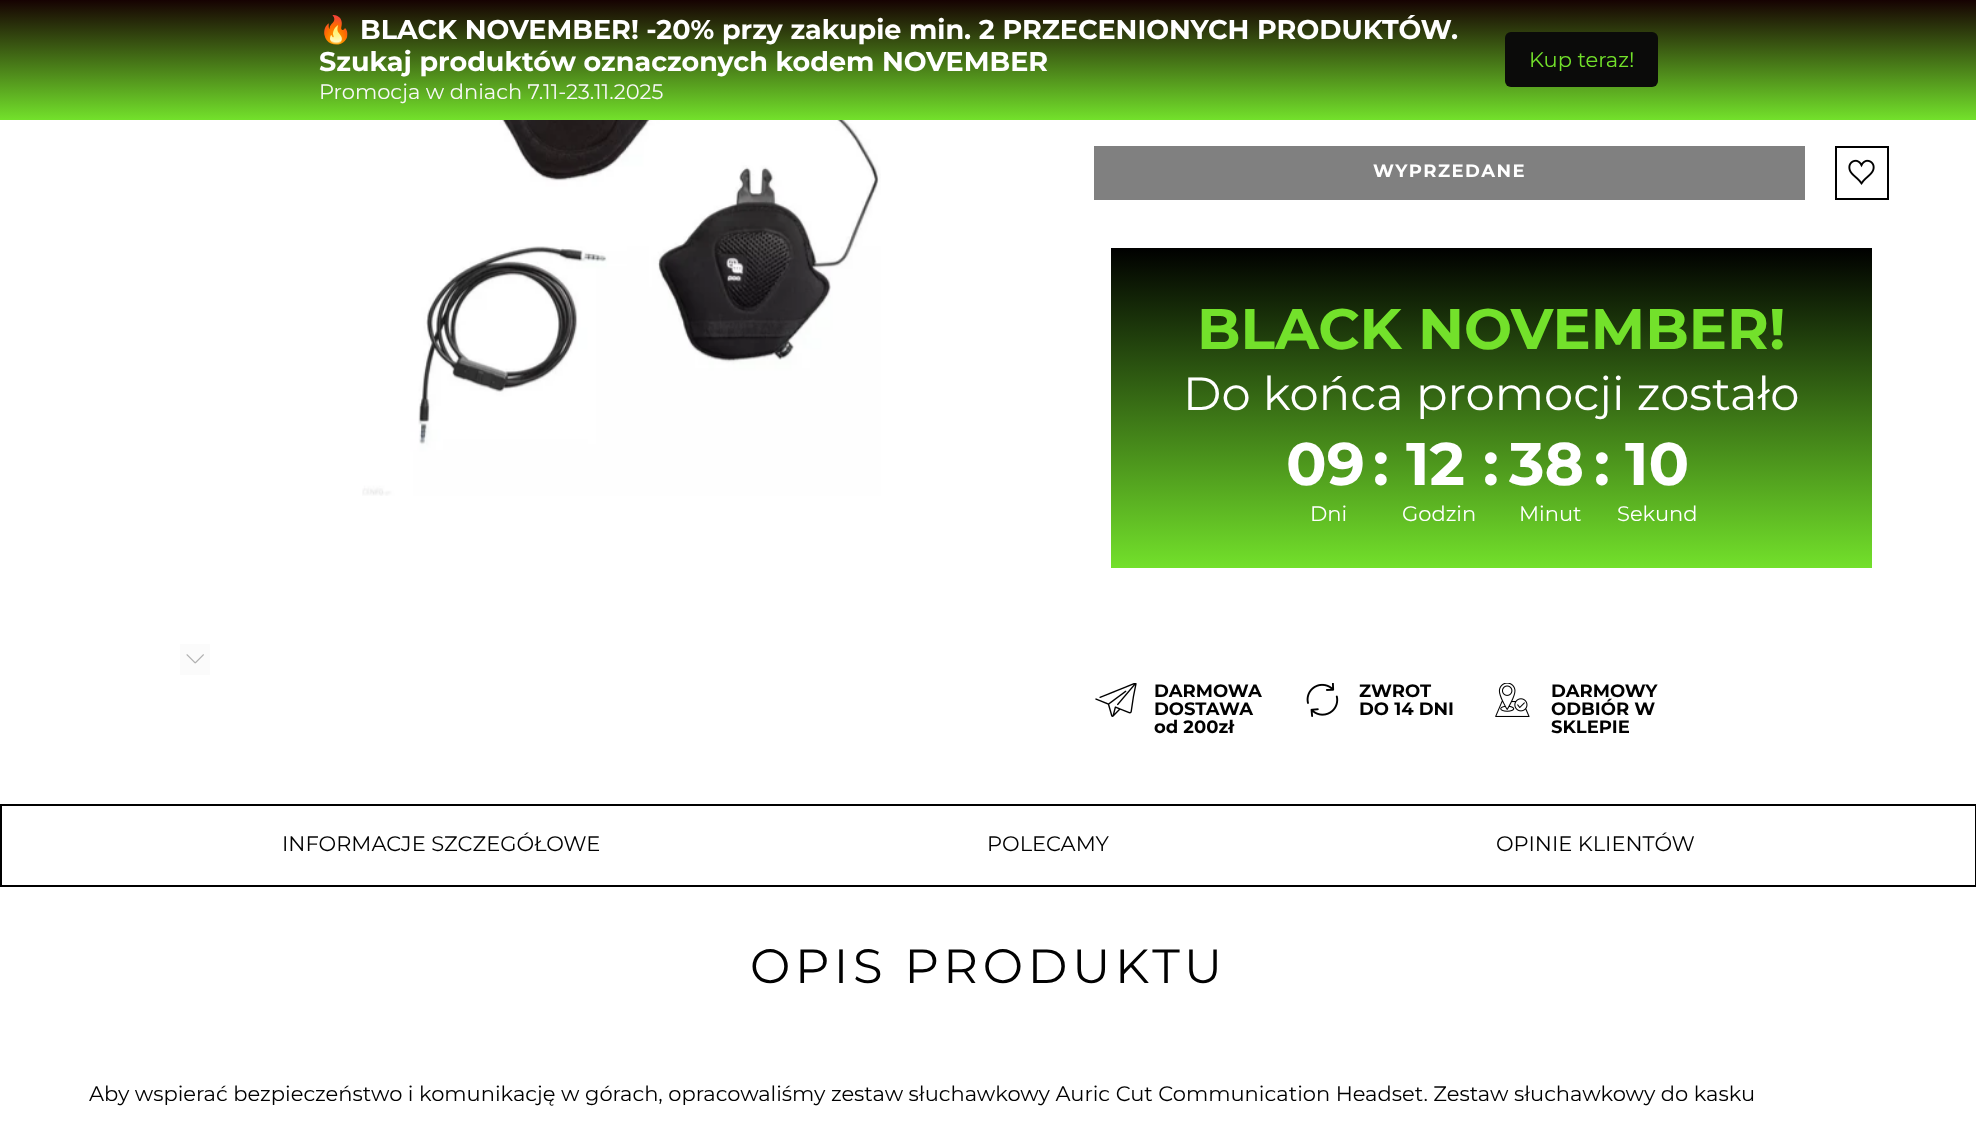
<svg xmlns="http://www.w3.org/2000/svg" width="1976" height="1122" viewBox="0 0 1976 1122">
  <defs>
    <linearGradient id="g1" gradientUnits="userSpaceOnUse" x1="989" y1="120" x2="989" y2="0"><stop offset="0" stop-color="#73e12b"/><stop offset="1" stop-color="#160202"/></linearGradient>
    <clipPath id="clip1"><rect x="320" y="15" width="1146" height="90"/></clipPath>
    <linearGradient id="g2" gradientUnits="userSpaceOnUse" x1="1491" y1="569" x2="1491" y2="248"><stop offset="0" stop-color="#73e12b"/><stop offset="1" stop-color="#000000"/></linearGradient>
  </defs>
  <rect width="100%" height="100%" fill="#ffffff"/>
  <rect x="0" y="0" width="1976" height="120" fill="url(#g1)"/>
  <g clip-path="url(#clip1)">
    <text x="319" y="39" font-family="Noto Color Emoji" font-size="27" font-weight="bold" fill="#ffffff">🔥</text>
    <text x="360" y="39" font-family="Montserrat" font-size="27" font-weight="bold" fill="#ffffff">BLACK NOVEMBER! -20% przy zakupie min. 2 PRZECENIONYCH PRODUKTÓW.</text>
  </g>
  <text x="319" y="71" font-family="Montserrat" font-size="27" font-weight="bold" fill="#ffffff">Szukaj produktów oznaczonych kodem NOVEMBER</text>
  <text x="319" y="99" font-family="Montserrat" font-size="21" fill="#f8f8f8">Promocja w dniach 7.11-23.11.2025</text>
  <rect x="1505" y="32" width="153" height="55" rx="6" fill="#0b0b0a"/>
  <text x="1529" y="67" font-family="Montserrat" font-size="21" fill="#73e12b">Kup teraz!</text>
  <image x="362" y="120" width="519" height="376" href="img1.png"/>
  <rect x="180" y="644" width="30" height="31" fill="#fbfbfb"/>
  <image x="186" y="654" width="18" height="10" href="img2.png"/>
  <rect x="1094" y="146" width="711" height="54" fill="#808080"/>
  <text x="1373" y="177" font-family="Montserrat" font-size="18" font-weight="bold" letter-spacing="1.5" fill="#ffffff">WYPRZEDANE</text>
  <rect x="1836" y="147" width="52" height="52" fill="none" stroke="#000000" stroke-width="2"/>
  <image x="1848" y="159" width="27" height="26" href="img3.png"/>
  <rect x="1111" y="248" width="761" height="320" fill="url(#g2)"/>
  <text x="1197" y="349" font-family="Montserrat" font-size="57" font-weight="bold" fill="#73e12b">BLACK NOVEMBER!</text>
  <text x="1183" y="410" font-family="Montserrat" font-size="46.5" fill="#ffffff">Do końca promocji zostało</text>
  <text x="1286" y="485" font-family="Montserrat" font-size="60" font-weight="bold" fill="#ffffff">09</text>
  <text x="1373" y="485" font-family="Montserrat" font-size="60" font-weight="bold" fill="#ffffff">:</text>
  <text x="1406" y="485" font-family="Montserrat" font-size="60" font-weight="bold" fill="#ffffff">12</text>
  <text x="1483" y="485" font-family="Montserrat" font-size="60" font-weight="bold" fill="#ffffff">:</text>
  <text x="1509" y="485" font-family="Montserrat" font-size="60" font-weight="bold" fill="#ffffff">38</text>
  <text x="1594" y="485" font-family="Montserrat" font-size="60" font-weight="bold" fill="#ffffff">:</text>
  <text x="1625" y="485" font-family="Montserrat" font-size="60" font-weight="bold" fill="#ffffff">10</text>
  <text x="1310" y="521" font-family="Montserrat" font-size="21" fill="#ffffff">Dni</text>
  <text x="1402" y="521" font-family="Montserrat" font-size="21" fill="#ffffff">Godzin</text>
  <text x="1519" y="521" font-family="Montserrat" font-size="21" fill="#ffffff">Minut</text>
  <text x="1617" y="521" font-family="Montserrat" font-size="21" fill="#ffffff">Sekund</text>
  <image x="1095" y="683" width="42" height="34" href="img4.png"/>
  <text x="1154" y="697" font-family="Montserrat" font-size="18" font-weight="bold" fill="#010101">DARMOWA</text>
  <text x="1154" y="715" font-family="Montserrat" font-size="18" font-weight="bold" fill="#010101">DOSTAWA</text>
  <text x="1154" y="733" font-family="Montserrat" font-size="18" font-weight="bold" fill="#010101">od 200zł</text>
  <image x="1306" y="683" width="33" height="34" href="img5.png"/>
  <text x="1359" y="697" font-family="Montserrat" font-size="18" font-weight="bold" fill="#010101">ZWROT</text>
  <text x="1359" y="715" font-family="Montserrat" font-size="18" font-weight="bold" fill="#010101">DO 14 DNI</text>
  <image x="1495" y="683" width="35" height="34" href="img6.png"/>
  <text x="1551" y="697" font-family="Montserrat" font-size="18" font-weight="bold" fill="#010101">DARMOWY</text>
  <text x="1551" y="715" font-family="Montserrat" font-size="18" font-weight="bold" fill="#010101">ODBIÓR W</text>
  <text x="1551" y="733" font-family="Montserrat" font-size="18" font-weight="bold" fill="#010101">SKLEPIE</text>
  <rect x="1" y="805" width="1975" height="81" fill="none" stroke="#000000" stroke-width="2"/>
  <text x="282" y="851" font-family="Montserrat" font-size="21" fill="#010101">INFORMACJE SZCZEGÓŁOWE</text>
  <text x="987" y="851" font-family="Montserrat" font-size="21" fill="#010101">POLECAMY</text>
  <text x="1496" y="851" font-family="Montserrat" font-size="21" fill="#010101">OPINIE KLIENTÓW</text>
  <text x="750" y="983" font-family="Montserrat" font-size="48" letter-spacing="4.75" fill="#010101">OPIS PRODUKTU</text>
  <text x="89" y="1101" font-family="Montserrat" font-size="21" fill="#010101">Aby wspierać bezpieczeństwo i komunikację w górach, opracowaliśmy zestaw słuchawkowy Auric Cut Communication Headset. Zestaw słuchawkowy do kasku</text>
</svg>
